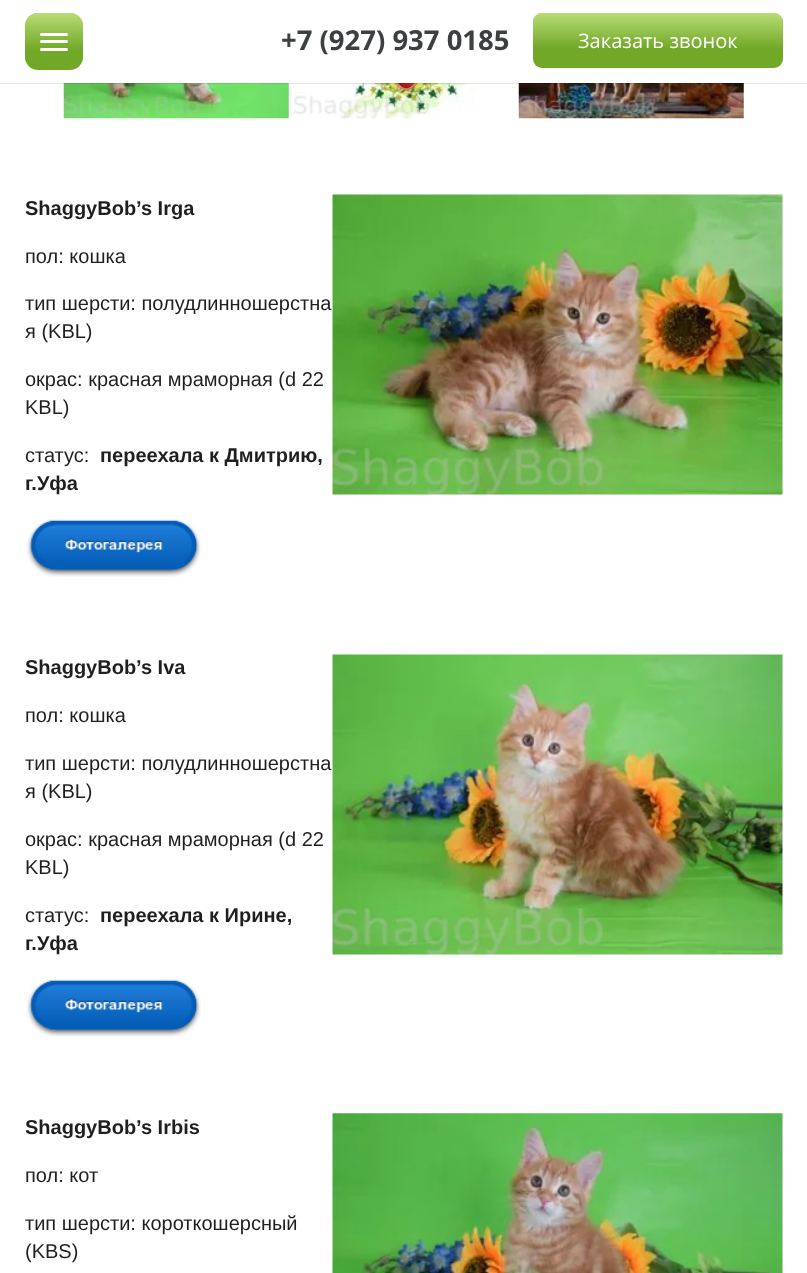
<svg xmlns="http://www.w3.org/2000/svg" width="807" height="1273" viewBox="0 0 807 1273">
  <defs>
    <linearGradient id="g1" gradientUnits="userSpaceOnUse" x1="54" y1="12" x2="54" y2="70"><stop offset="0" stop-color="#c2e480" stop-opacity="0.9"/><stop offset="0.65" stop-color="#c2e480" stop-opacity="0"/></linearGradient>
    <linearGradient id="g2" gradientUnits="userSpaceOnUse" x1="658" y1="12" x2="658" y2="68"><stop offset="0" stop-color="#c2e480" stop-opacity="0.9"/><stop offset="0.65" stop-color="#c2e480" stop-opacity="0"/></linearGradient>
  </defs>
  <rect width="100%" height="100%" fill="#ffffff"/>
  <image x="63" y="83" width="226" height="36" href="img1.png"/>
  <image x="293" y="83" width="201" height="36" href="img2.png"/>
  <image x="518" y="83" width="226" height="36" href="img3.png"/>
  <path d="M0 82V84H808V1V82Z" fill="#000000" fill-opacity="0.1"/>
  <rect x="0" y="82" width="807" height="1" fill="#ffffff"/>
  <rect x="25" y="13" width="58" height="57" rx="13" fill="#72a828"/>
  <rect x="25" y="13" width="58" height="57" rx="13" fill="url(#g1)"/>
  <rect x="40" y="33" width="28" height="3" rx="1.5" fill="#ffffff"/>
  <rect x="40" y="40" width="28" height="3" rx="1.5" fill="#ffffff"/>
  <rect x="40" y="48" width="28" height="3" rx="1.5" fill="#ffffff"/>
  <text x="281" y="50" font-family="Open Sans" font-size="27.5" font-weight="bold" fill="#3d4041">+7 (927) 937 0185</text>
  <rect x="533" y="13" width="250" height="55" rx="9" fill="#72a828"/>
  <rect x="533" y="13" width="250" height="55" rx="9" fill="url(#g2)"/>
  <text x="578" y="48" font-family="Open Sans" font-size="20" fill="#ffffff">Заказать звонок</text>
  <text x="25" y="215" font-family="Liberation Sans" font-size="20" font-weight="bold" fill="#1f1f1f">ShaggyBob’s Irga</text>
  <image x="332" y="194" width="451" height="301" href="img4.png"/>
  <text x="25" y="263" font-family="Liberation Sans" font-size="20" fill="#1f1f1f">пол: кошка</text>
  <text x="25" y="310" font-family="Liberation Sans" font-size="20" fill="#1f1f1f">тип шерсти: полудлинношерстна</text>
  <text x="25" y="338" font-family="Liberation Sans" font-size="20" fill="#1f1f1f">я (KBL)</text>
  <text x="25" y="386" font-family="Liberation Sans" font-size="20" fill="#1f1f1f">окрас: красная мраморная (d 22</text>
  <text x="25" y="414" font-family="Liberation Sans" font-size="20" fill="#1f1f1f">KBL)</text>
  <text x="25" y="462" font-family="Liberation Sans" font-size="20" fill="#1f1f1f">статус:</text>
  <text x="100" y="462" font-family="Liberation Sans" font-size="20" font-weight="bold" fill="#1f1f1f">переехала к Дмитрию,</text>
  <text x="25" y="490" font-family="Liberation Sans" font-size="20" font-weight="bold" fill="#1f1f1f">г.Уфа</text>
  <image x="26" y="519" width="175" height="58" href="img5.png"/>
  <text x="25" y="674" font-family="Liberation Sans" font-size="20" font-weight="bold" fill="#1f1f1f">ShaggyBob’s Iva</text>
  <image x="332" y="654" width="451" height="301" href="img6.png"/>
  <text x="25" y="722" font-family="Liberation Sans" font-size="20" fill="#1f1f1f">пол: кошка</text>
  <text x="25" y="770" font-family="Liberation Sans" font-size="20" fill="#1f1f1f">тип шерсти: полудлинношерстна</text>
  <text x="25" y="798" font-family="Liberation Sans" font-size="20" fill="#1f1f1f">я (KBL)</text>
  <text x="25" y="846" font-family="Liberation Sans" font-size="20" fill="#1f1f1f">окрас: красная мраморная (d 22</text>
  <text x="25" y="874" font-family="Liberation Sans" font-size="20" fill="#1f1f1f">KBL)</text>
  <text x="25" y="922" font-family="Liberation Sans" font-size="20" fill="#1f1f1f">статус:</text>
  <text x="100" y="922" font-family="Liberation Sans" font-size="20" font-weight="bold" fill="#1f1f1f">переехала к Ирине,</text>
  <text x="25" y="950" font-family="Liberation Sans" font-size="20" font-weight="bold" fill="#1f1f1f">г.Уфа</text>
  <image x="26" y="979" width="175" height="58" href="img7.png"/>
  <text x="25" y="1134" font-family="Liberation Sans" font-size="20" font-weight="bold" fill="#1f1f1f">ShaggyBob’s Irbis</text>
  <image x="332" y="1113" width="451" height="160" href="img8.png"/>
  <text x="25" y="1182" font-family="Liberation Sans" font-size="20" fill="#1f1f1f">пол: кот</text>
  <text x="25" y="1230" font-family="Liberation Sans" font-size="20" fill="#1f1f1f">тип шерсти: короткошерсный</text>
  <text x="25" y="1258" font-family="Liberation Sans" font-size="20" fill="#1f1f1f">(KBS)</text>
</svg>
